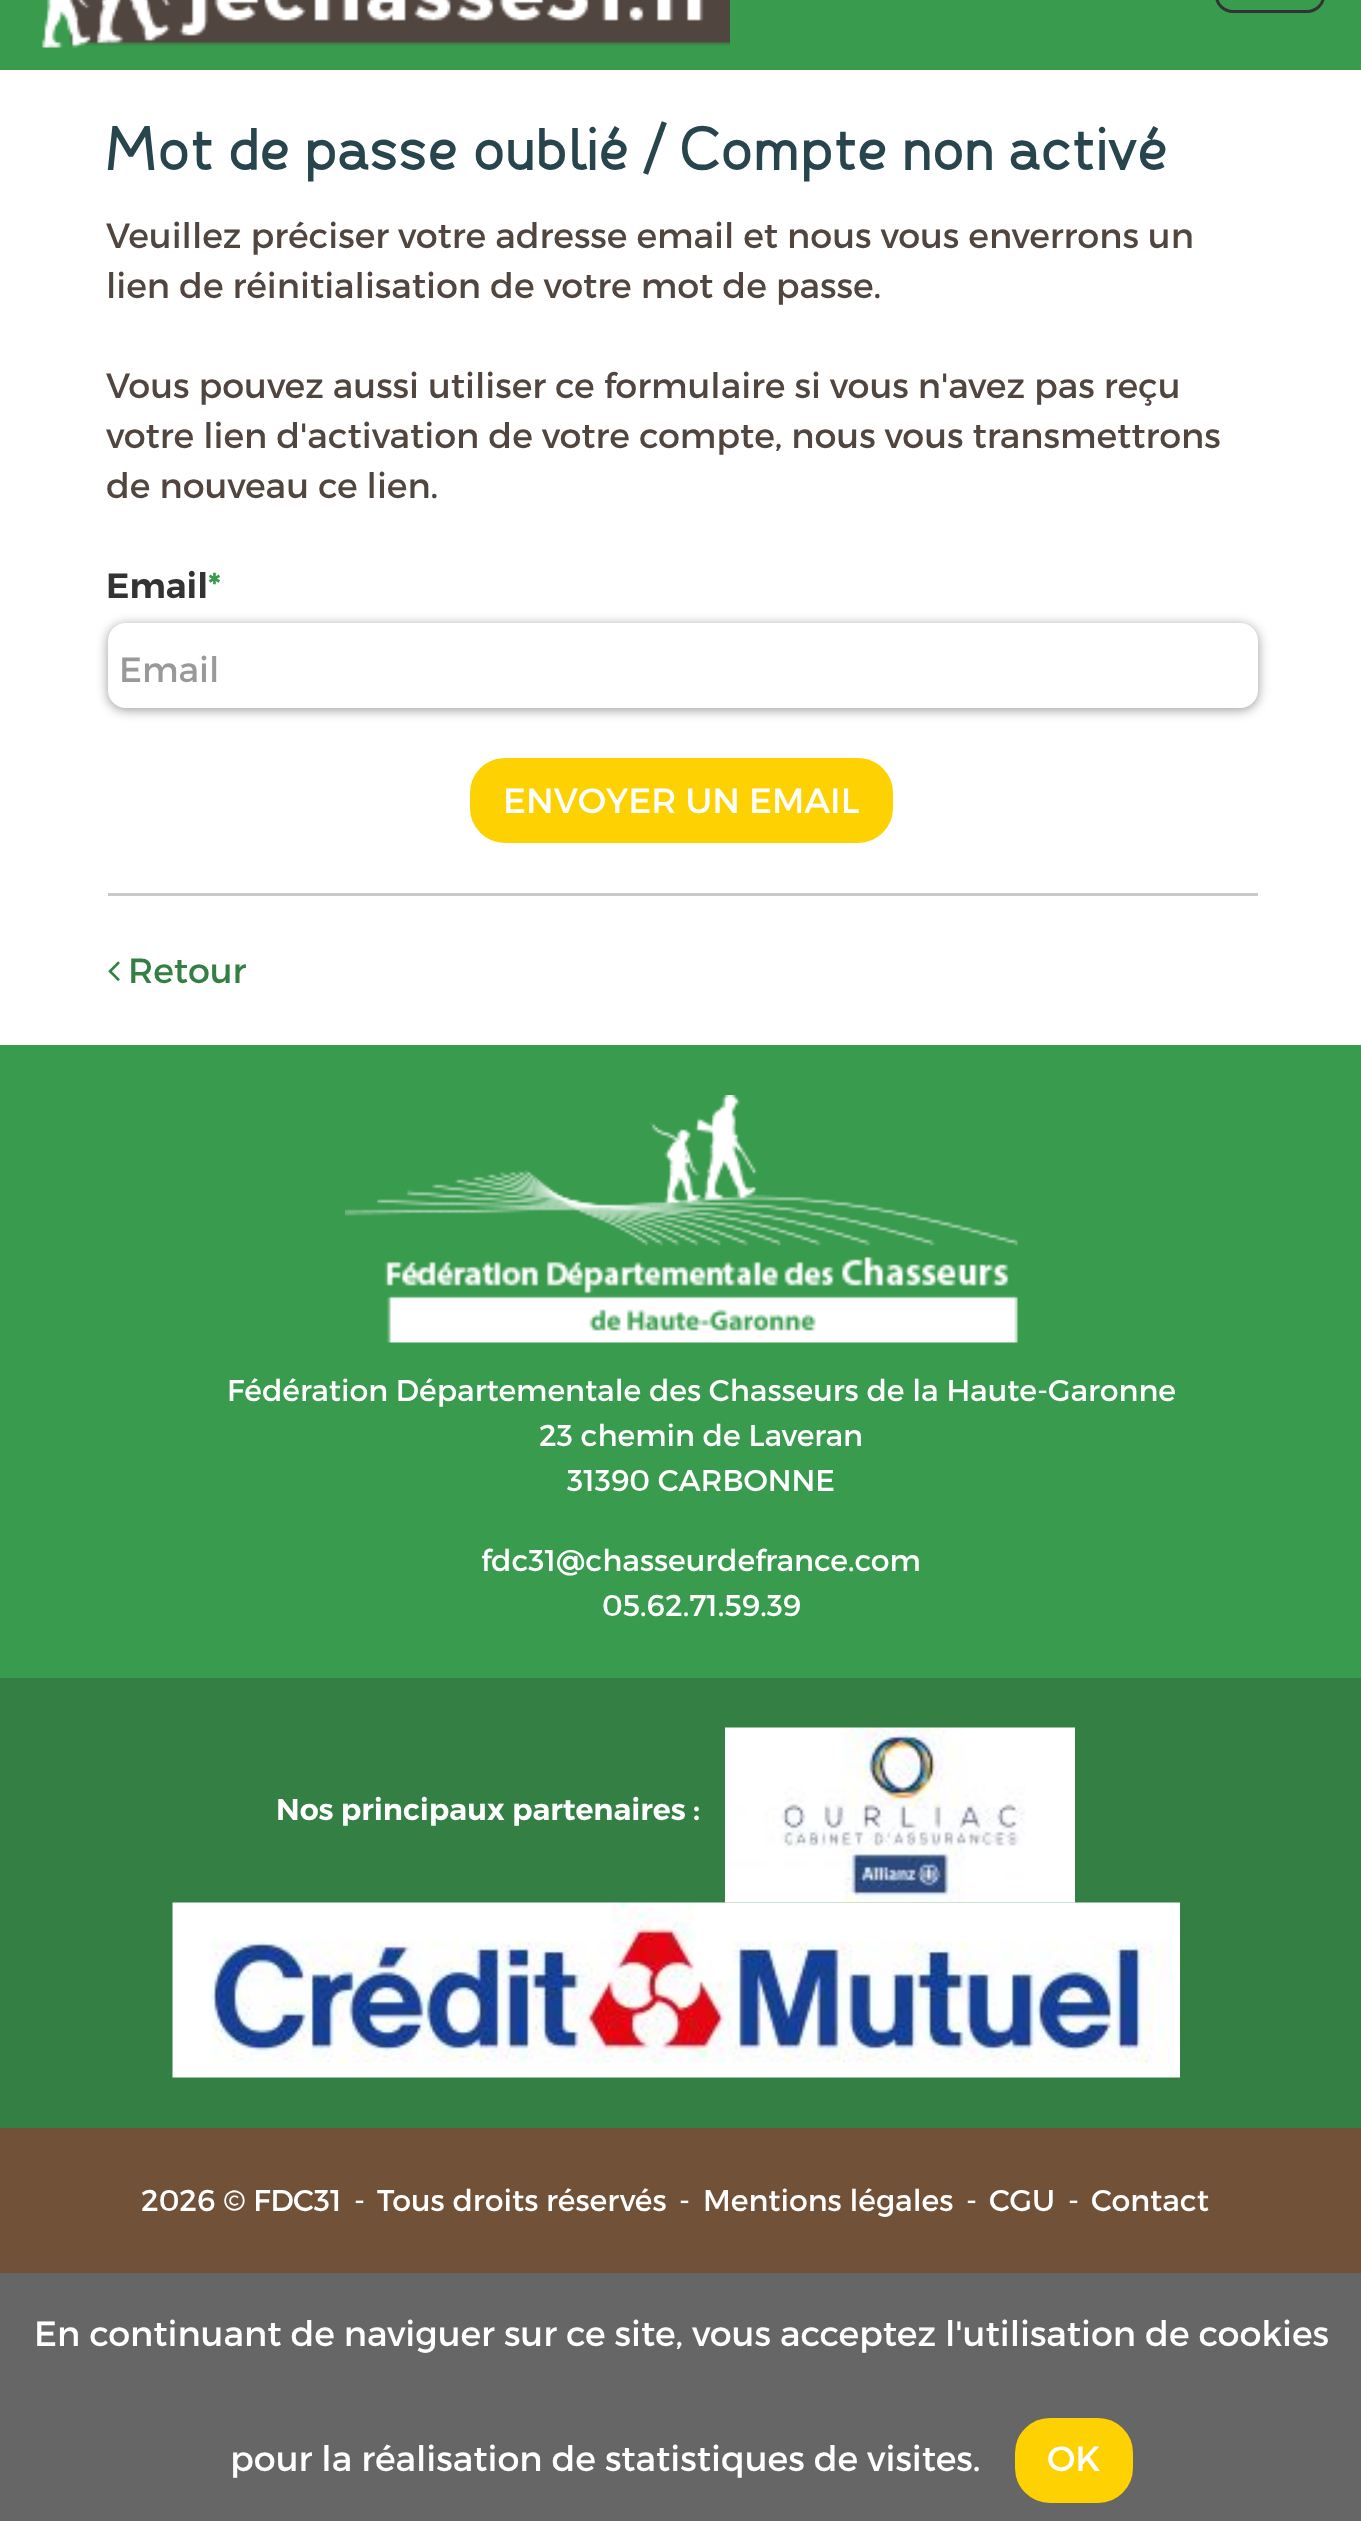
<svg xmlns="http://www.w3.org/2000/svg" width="1361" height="2521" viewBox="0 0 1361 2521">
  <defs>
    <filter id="blur1" x="-50%" y="-200%" width="200%" height="500%"><feGaussianBlur stdDeviation="6"/></filter>
  </defs>
  <rect width="100%" height="100%" fill="#ffffff"/>
  <rect x="0" y="0" width="1361" height="70" fill="#399b4e"/>
  <rect x="1216.5" y="-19.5" width="107" height="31" rx="16.5" fill="none" stroke="#333333" stroke-width="3"/>
  <image x="41" y="0" width="689" height="48" href="img1.png"/>
  <text x="106" y="170" font-family="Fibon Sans" font-size="60" font-weight="bold" fill="#28454d">Mot de passe oublié / Compte non activé</text>
  <text x="106" y="248" font-family="Montserrat" font-size="35" fill="#50453f">Veuillez préciser votre adresse email et nous vous enverrons un</text>
  <text x="106" y="298" font-family="Montserrat" font-size="35" fill="#50453f">lien de réinitialisation de votre mot de passe.</text>
  <text x="106" y="398" font-family="Montserrat" font-size="35" fill="#50453f">Vous pouvez aussi utiliser ce formulaire si vous n'avez pas reçu</text>
  <text x="106" y="448" font-family="Montserrat" font-size="35" fill="#50453f">votre lien d'activation de votre compte, nous vous transmettrons</text>
  <text x="106" y="498" font-family="Montserrat" font-size="35" fill="#50453f">de nouveau ce lien.</text>
  <text x="106" y="598" font-family="Montserrat" font-size="35" font-weight="600" fill="#333333">Email</text>
  <text x="208" y="598" font-family="Montserrat" font-size="35" font-weight="600" fill="#399b4e">*</text>
  <rect x="108" y="625" width="1150" height="85" rx="18" fill="#000000" fill-opacity="0.4" filter="url(#blur1)"/>
  <rect x="108" y="623" width="1150" height="85" rx="18" fill="#ffffff"/>
  <text x="119" y="682" font-family="Montserrat" font-size="35" fill="#999999">Email</text>
  <rect x="471.5" y="759.5" width="420" height="82" rx="33.5" fill="#fed102" stroke="#fed102" stroke-width="3"/>
  <text x="503" y="813" font-family="Montserrat" font-size="35" fill="#ffffff">ENVOYER UN EMAIL</text>
  <rect x="108" y="893" width="1150" height="3" fill="#cacaca"/>
  <image x="108" y="961" width="12" height="20" href="img2.png"/>
  <text x="128" y="983" font-family="Montserrat" font-size="35" fill="#347f44">Retour</text>
  <rect x="0" y="1045" width="1361" height="633" fill="#399b4e"/>
  <image x="345" y="1095" width="673" height="248" href="img3.png"/>
  <text x="227" y="1401" font-family="Montserrat" font-size="30" fill="#ffffff">Fédération Départementale des Chasseurs de la Haute-Garonne</text>
  <text x="539" y="1446" font-family="Montserrat" font-size="30" fill="#ffffff">23 chemin de Laveran</text>
  <text x="567" y="1491" font-family="Montserrat" font-size="30" fill="#ffffff">31390 CARBONNE</text>
  <text x="481" y="1571" font-family="Montserrat" font-size="30" fill="#ffffff">fdc31@chasseurdefrance.com</text>
  <text x="602" y="1616" font-family="Montserrat" font-size="30" fill="#ffffff">05.62.71.59.39</text>
  <rect x="0" y="1678" width="1361" height="450" fill="#347f44"/>
  <text x="276" y="1820" font-family="Montserrat" font-size="30" font-weight="600" fill="#ffffff">Nos principaux partenaires :</text>
  <image x="725" y="1727" width="350" height="176" href="img4.png"/>
  <image x="172" y="1902" width="1008" height="176" href="img5.png"/>
  <rect x="0" y="2128" width="1361" height="145" fill="#715138"/>
  <text x="141" y="2211" font-family="Montserrat" font-size="30" fill="#ffffff">2026 © FDC31</text>
  <text x="354" y="2211" font-family="Montserrat" font-size="30" fill="#ffffff">-</text>
  <text x="377" y="2211" font-family="Montserrat" font-size="30" fill="#ffffff">Tous droits réservés</text>
  <text x="679" y="2211" font-family="Montserrat" font-size="30" fill="#ffffff">-</text>
  <text x="703" y="2211" font-family="Montserrat" font-size="30" fill="#ffffff">Mentions légales</text>
  <text x="966" y="2211" font-family="Montserrat" font-size="30" fill="#ffffff">-</text>
  <text x="989" y="2211" font-family="Montserrat" font-size="30" fill="#ffffff">CGU</text>
  <text x="1068" y="2211" font-family="Montserrat" font-size="30" fill="#ffffff">-</text>
  <text x="1091" y="2211" font-family="Montserrat" font-size="30" fill="#ffffff">Contact</text>
  <rect x="0" y="2273" width="1361" height="248" fill="#666666"/>
  <text x="34" y="2346" font-family="Montserrat" font-size="35" fill="#ffffff">En continuant de naviguer sur ce site, vous acceptez l'utilisation de cookies</text>
  <text x="230" y="2471" font-family="Montserrat" font-size="35" fill="#ffffff">pour la réalisation de statistiques de visites.</text>
  <rect x="1016.5" y="2419.5" width="115" height="82" rx="33.5" fill="#fed102" stroke="#fed102" stroke-width="3"/>
  <text x="1047" y="2471" font-family="Montserrat" font-size="35" fill="#ffffff">OK</text>
</svg>
